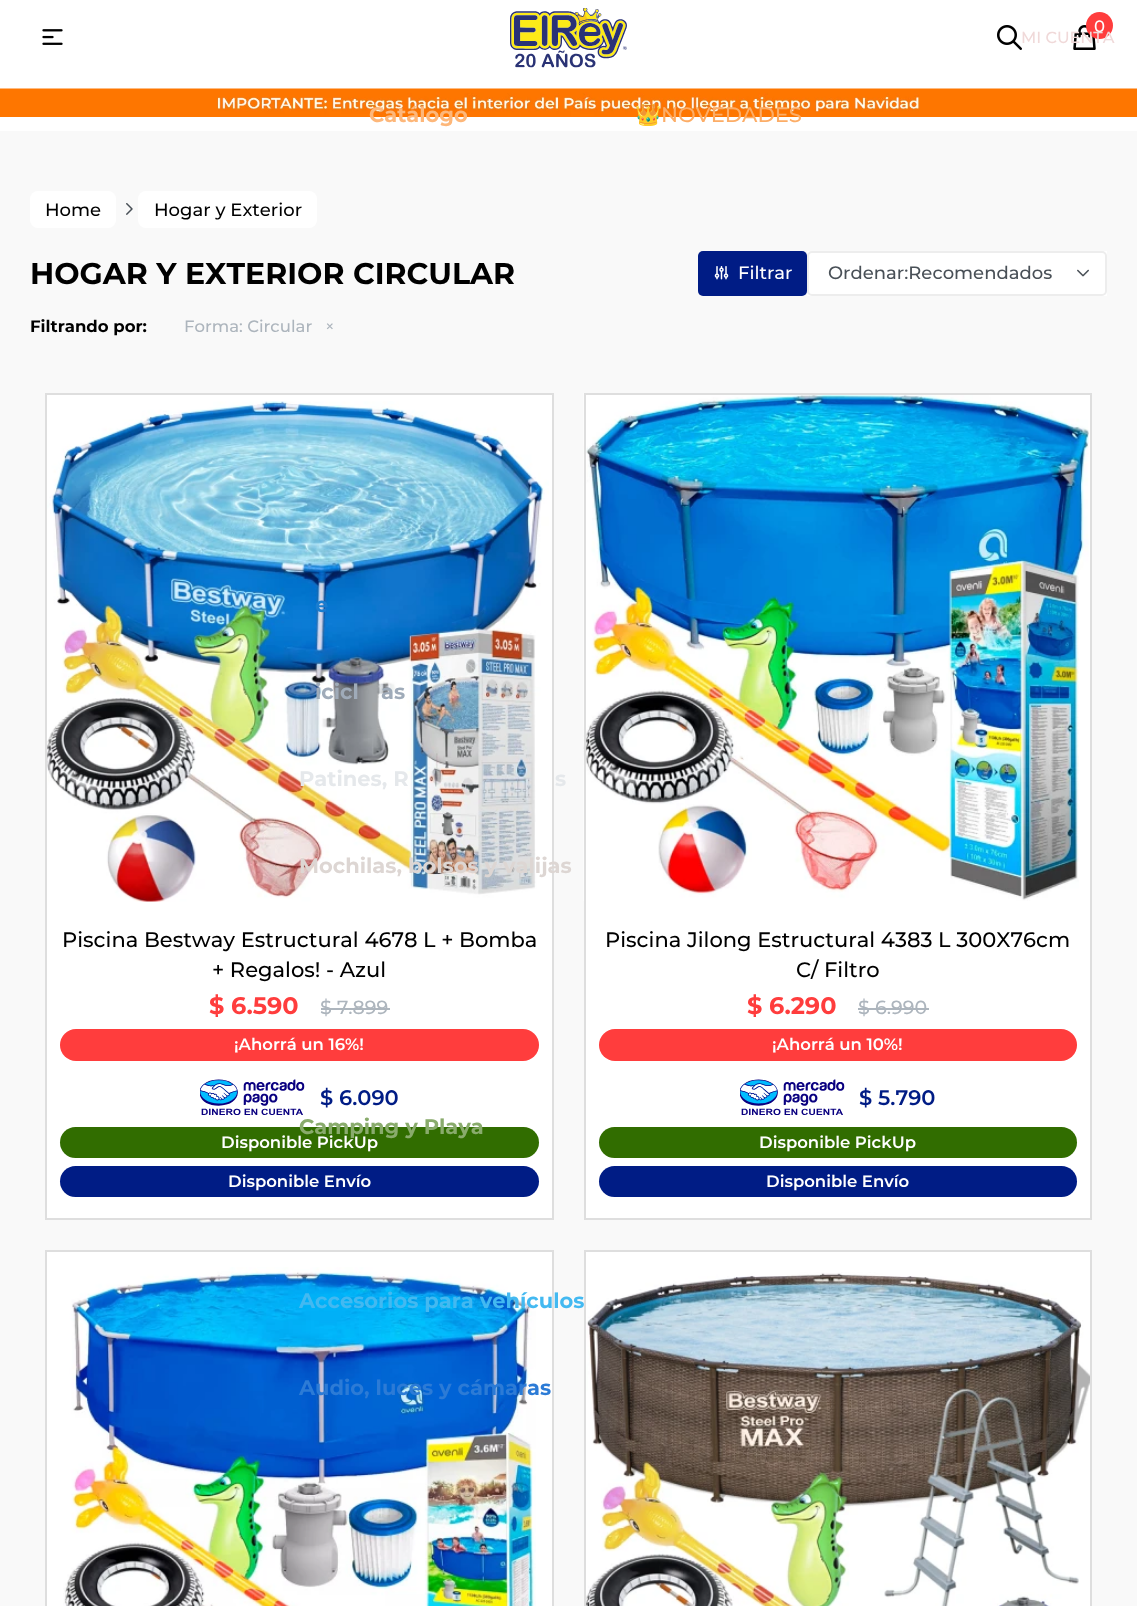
<svg xmlns="http://www.w3.org/2000/svg" width="1137" height="1606" viewBox="0 0 1137 1606">
  <style>*{font-kerning:none!important;font-variant-ligatures:none!important}</style>
  <rect width="100%" height="100%" fill="#f9f9f9"/>
  <rect x="0" y="0" width="1137" height="131" fill="#ffffff"/>
  <image x="42" y="29" width="21" height="16" href="img1.png"/>
  <image x="510" y="8" width="117" height="60" href="img2.png"/>
  <image x="997" y="25" width="25" height="25" href="img3.png"/>
  <image x="1073" y="25" width="23" height="25" href="img4.png"/>
  <circle cx="1099.5" cy="25.5" r="13.5" fill="#ff3d3d"/>
  <text x="1094" y="32" font-family="Montserrat" font-size="16.5" font-weight="500" fill="#ffffff">0</text>
  <image x="0" y="88" width="1137" height="29" href="img5.png"/>
  <rect x="30" y="191" width="86" height="37" rx="8" fill="#ffffff"/>
  <text x="45" y="216" font-family="Montserrat" font-size="18" font-weight="500" fill="#000000">Home</text>
  <image x="126" y="203" width="7" height="12" href="img6.png"/>
  <rect x="138" y="191" width="179" height="37" rx="8" fill="#ffffff"/>
  <text x="154" y="216" font-family="Montserrat" font-size="18" font-weight="500" fill="#000000">Hogar y Exterior</text>
  <text x="30" y="284" font-family="Montserrat" font-size="30" font-weight="bold" fill="#000000">HOGAR Y EXTERIOR CIRCULAR</text>
  <rect x="698" y="251" width="109" height="45" rx="5" fill="#001c85"/>
  <image x="714" y="266" width="15" height="14" href="img7.png"/>
  <text x="738" y="279" font-family="Montserrat" font-size="18" font-weight="500" fill="#ffffff">Filtrar</text>
  <rect x="807" y="251" width="300" height="45" fill="#ffffff"/>
  <image x="1077" y="269" width="12" height="8" href="img8.png"/>
  <rect x="808" y="252" width="298" height="43" rx="4" fill="none" stroke="#ededed" stroke-width="2"/>
  <text x="828" y="279" font-family="Montserrat" font-size="18" font-weight="500" fill="#495057">Ordenar:Recomendados</text>
  <text x="30" y="332" font-family="Montserrat" font-size="16.5" font-weight="bold" fill="#000000">Filtrando por:</text>
  <text x="184" y="332" font-family="Montserrat" font-size="16.5" font-weight="500" fill="#adb5bd">Forma: Circular</text>
  <text x="325" y="332" font-family="Montserrat" font-size="16.5" font-weight="500" fill="#adb5bd">×</text>
  <rect x="47" y="395" width="505" height="823" fill="#ffffff"/>
  <image x="47" y="401" width="502" height="501" href="img9.png"/>
  <rect x="321" y="1008" width="69" height="2" fill="#adb5bd"/>
  <rect x="60" y="1029" width="479" height="32" rx="16" fill="#ff3d3d"/>
  <image x="200" y="1079" width="105" height="36" href="img10.png"/>
  <rect x="60" y="1127" width="479" height="31" rx="15.5" fill="#316d00"/>
  <rect x="60" y="1166" width="479" height="31" rx="15.5" fill="#001c85"/>
  <rect x="46" y="394" width="507" height="825" fill="none" stroke="#dedede" stroke-width="2"/>
  <text x="62" y="947" font-family="Montserrat" font-size="21" font-weight="500" fill="#000000">Piscina Bestway Estructural 4678 L + Bomba</text>
  <text x="212" y="977" font-family="Montserrat" font-size="21" font-weight="500" fill="#000000">+ Regalos! - Azul</text>
  <text x="209" y="1014" font-family="Montserrat" font-size="24" font-weight="bold" fill="#ff3d3d">$ 6.590</text>
  <text x="320" y="1014" font-family="Montserrat" font-size="19" font-weight="500" fill="#adb5bd">$ 7.899</text>
  <text x="234" y="1050" font-family="Montserrat" font-size="16.5" font-weight="600" fill="#ffffff">¡Ahorrá un 16%!</text>
  <text x="320" y="1105" font-family="Montserrat" font-size="21" font-weight="600" fill="#001c85">$ 6.090</text>
  <text x="221" y="1148" font-family="Montserrat" font-size="16.5" font-weight="600" fill="#ffffff">Disponible PickUp</text>
  <text x="228" y="1187" font-family="Montserrat" font-size="16.5" font-weight="600" fill="#ffffff">Disponible Envío</text>
  <rect x="586" y="395" width="504" height="823" fill="#ffffff"/>
  <image x="583" y="393" width="506" height="508" href="img11.png"/>
  <rect x="858" y="1008" width="71" height="2" fill="#adb5bd"/>
  <rect x="599" y="1029" width="478" height="32" rx="16" fill="#ff3d3d"/>
  <image x="740" y="1079" width="105" height="36" href="img12.png"/>
  <rect x="599" y="1127" width="478" height="31" rx="15.5" fill="#316d00"/>
  <rect x="599" y="1166" width="478" height="31" rx="15.5" fill="#001c85"/>
  <rect x="585" y="394" width="506" height="825" fill="none" stroke="#dedede" stroke-width="2"/>
  <text x="605" y="947" font-family="Montserrat" font-size="21" font-weight="500" fill="#000000">Piscina Jilong Estructural 4383 L 300X76cm</text>
  <text x="796" y="977" font-family="Montserrat" font-size="21" font-weight="500" fill="#000000">C/ Filtro</text>
  <text x="747" y="1014" font-family="Montserrat" font-size="24" font-weight="bold" fill="#ff3d3d">$ 6.290</text>
  <text x="858" y="1014" font-family="Montserrat" font-size="19" font-weight="500" fill="#adb5bd">$ 6.990</text>
  <text x="772" y="1050" font-family="Montserrat" font-size="16.5" font-weight="600" fill="#ffffff">¡Ahorrá un 10%!</text>
  <text x="859" y="1105" font-family="Montserrat" font-size="21" font-weight="600" fill="#001c85">$ 5.790</text>
  <text x="759" y="1148" font-family="Montserrat" font-size="16.5" font-weight="600" fill="#ffffff">Disponible PickUp</text>
  <text x="766" y="1187" font-family="Montserrat" font-size="16.5" font-weight="600" fill="#ffffff">Disponible Envío</text>
  <rect x="47" y="1252" width="505" height="354" fill="#ffffff"/>
  <image x="63" y="1267" width="473" height="339" href="img13.png"/>
  <rect x="46" y="1251" width="507" height="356" fill="none" stroke="#dedede" stroke-width="2"/>
  <rect x="586" y="1252" width="504" height="20" fill="#ffffff"/>
  <image x="586" y="1272" width="504" height="334" href="img14.png"/>
  <rect x="585" y="1251" width="506" height="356" fill="none" stroke="#dedede" stroke-width="2"/>
  <text x="1021" y="43" font-family="Montserrat" font-size="16" font-weight="500" fill="#f0d9d9">MI CUENTA</text>
  <text x="369" y="122" font-family="Montserrat" font-size="21" font-weight="bold" fill="#fdb77a">Catálogo</text>
  <text x="635" y="122" font-family="Noto Color Emoji" font-size="21" fill="#fbbc84">👑</text>
  <text x="661" y="122" font-family="Montserrat" font-size="21" font-weight="500" fill="#fcad67">NOVEDADES</text>
  <text x="315" y="612" font-family="Montserrat" font-size="21" font-weight="bold" fill="#197dd0">e</text>
  <text x="315" y="699" font-family="Montserrat" font-size="21" font-weight="bold" fill="#9fabb9">icicl</text>
  <text x="381" y="699" font-family="Montserrat" font-size="21" font-weight="bold" fill="#9fabb9">as</text>
  <text x="299" y="786" font-family="Montserrat" font-size="21" font-weight="bold" fill="#e5e8eb">Patines, R</text>
  <text x="555" y="786" font-family="Montserrat" font-size="21" font-weight="bold" fill="#e5e8eb">s</text>
  <text x="299" y="873" font-family="Montserrat" font-size="21" font-weight="bold" fill="#ddd6d3">Mochilas, bolsos y valijas</text>
  <text x="299" y="1134" font-family="Montserrat" font-size="21" font-weight="bold" fill="#89ab6c">Camping y Playa</text>
  <text x="299" y="1308" font-family="Montserrat" font-size="21" font-weight="bold" fill="#43b9f1">Accesorios para vehículos</text>
  <text x="299" y="1395" font-family="Montserrat" font-size="21" font-weight="bold" fill="#2c7bd6">Audio, luces y cámaras</text>
</svg>
